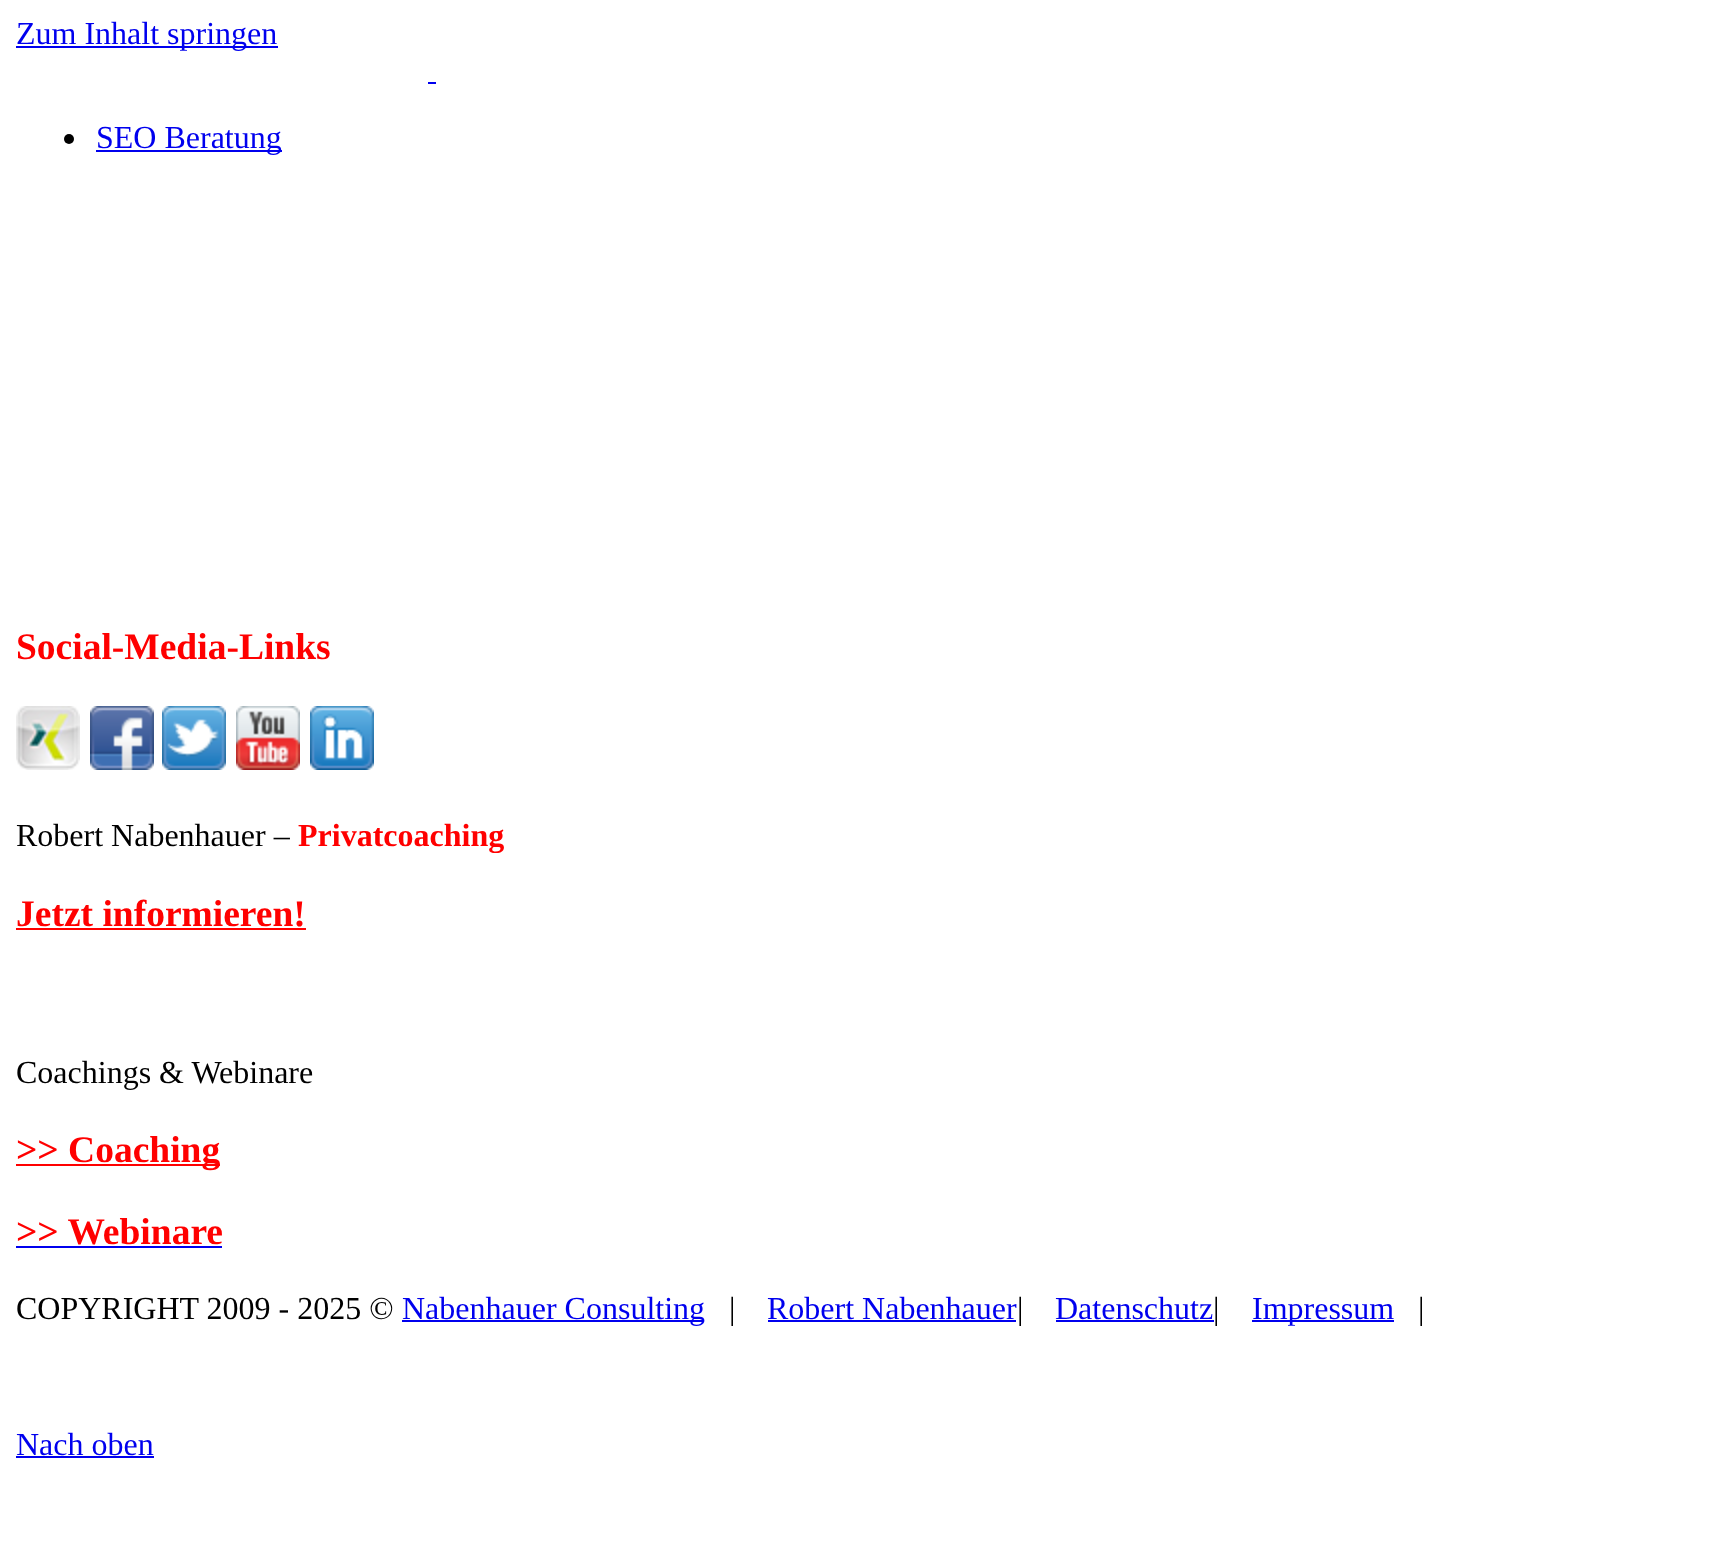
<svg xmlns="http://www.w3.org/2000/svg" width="1727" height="1547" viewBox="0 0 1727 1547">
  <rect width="100%" height="100%" fill="#ffffff"/>
  <rect x="16" y="46" width="262" height="2" fill="#0000ee"/>
  <text x="16" y="44" font-family="Liberation Serif" font-size="32" fill="#0000ee">Zum Inhalt springen</text>
  <rect x="428" y="82" width="8" height="2" fill="#0000ee"/>
  <circle cx="69" cy="139" r="5" fill="#000000"/>
  <rect x="96" y="150" width="186" height="2" fill="#0000ee"/>
  <text x="96" y="148" font-family="Liberation Serif" font-size="32" fill="#0000ee">SEO Beratung</text>
  <text x="16" y="659" font-family="Liberation Serif" font-size="37.5" font-weight="bold" fill="#ff0000">Social-Media-Links</text>
  <image x="16" y="706" width="64" height="64" href="img1.png"/>
  <image x="90" y="706" width="64" height="64" href="img2.png"/>
  <image x="162" y="706" width="64" height="64" href="img3.png"/>
  <image x="236" y="706" width="64" height="64" href="img4.png"/>
  <image x="310" y="706" width="64" height="64" href="img5.png"/>
  <text x="16" y="846" font-family="Liberation Serif" font-size="32" fill="#000000">Robert Nabenhauer –</text>
  <text x="298" y="846" font-family="Liberation Serif" font-size="32" font-weight="bold" fill="#ff0000">Privatcoaching</text>
  <text x="16" y="926" font-family="Liberation Serif" font-size="37.5" font-weight="bold" fill="#ff0000">Jetzt informieren!</text>
  <rect x="16" y="928" width="290" height="2" fill="#ff0000"/>
  <text x="16" y="1083" font-family="Liberation Serif" font-size="32" fill="#000000">Coachings &amp; Webinare</text>
  <rect x="16" y="1164" width="204" height="2" fill="#ff0000"/>
  <text x="16" y="1162" font-family="Liberation Serif" font-size="37.5" font-weight="bold" fill="#ff0000">&gt;&gt; Coaching</text>
  <text x="16" y="1244" font-family="Liberation Serif" font-size="37.5" font-weight="bold" fill="#ff0000">&gt;&gt; Webinare</text>
  <rect x="16" y="1246" width="206" height="2" fill="#0000ee"/>
  <text x="16" y="1319" font-family="Liberation Serif" font-size="32" fill="#000000">COPYRIGHT 2009 - 2025 ©</text>
  <rect x="402" y="1320" width="302" height="2" fill="#0000ee"/>
  <text x="402" y="1319" font-family="Liberation Serif" font-size="32" fill="#0000ee">Nabenhauer Consulting</text>
  <text x="729" y="1319" font-family="Liberation Serif" font-size="32" fill="#000000">|</text>
  <text x="767" y="1319" font-family="Liberation Serif" font-size="32" fill="#0000ee">Robert Nabenhauer</text>
  <rect x="768" y="1320" width="248" height="2" fill="#0000ee"/>
  <text x="1017" y="1319" font-family="Liberation Serif" font-size="32" fill="#000000">|</text>
  <text x="1055" y="1319" font-family="Liberation Serif" font-size="32" fill="#0000ee">Datenschutz</text>
  <rect x="1056" y="1320" width="158" height="2" fill="#0000ee"/>
  <text x="1213" y="1319" font-family="Liberation Serif" font-size="32" fill="#000000">|</text>
  <rect x="1252" y="1320" width="142" height="2" fill="#0000ee"/>
  <text x="1252" y="1319" font-family="Liberation Serif" font-size="32" fill="#0000ee">Impressum</text>
  <text x="1418" y="1319" font-family="Liberation Serif" font-size="32" fill="#000000">|</text>
  <text x="16" y="1455" font-family="Liberation Serif" font-size="32" fill="#0000ee">Nach oben</text>
  <rect x="16" y="1456" width="138" height="2" fill="#0000ee"/>
</svg>
